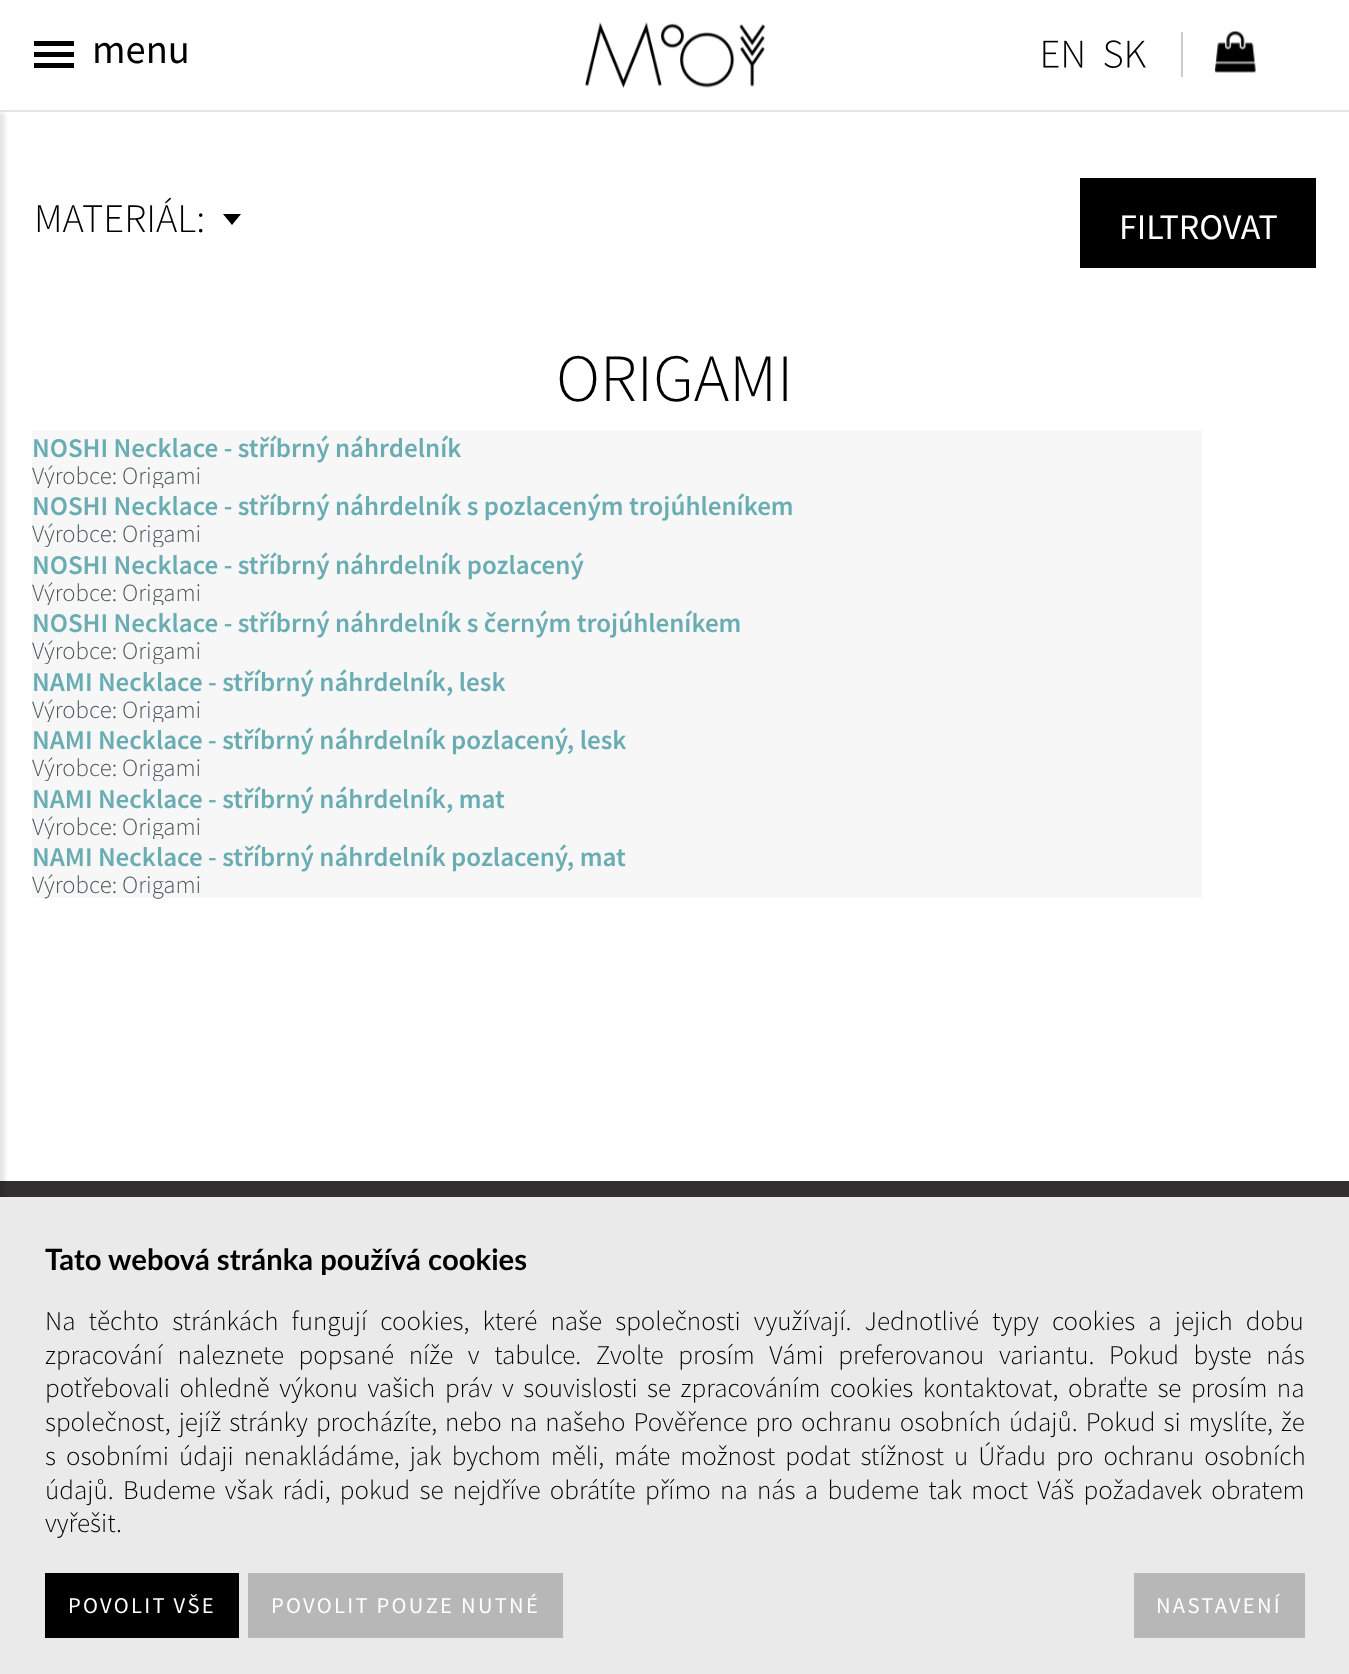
<svg xmlns="http://www.w3.org/2000/svg" width="1349" height="1674" viewBox="0 0 1349 1674">
  <defs>
    <filter id="blur1" x="-50%" y="-200%" width="200%" height="500%"><feGaussianBlur stdDeviation="2"/></filter>
  </defs>
  <rect width="100%" height="100%" fill="#ffffff"/>
  <rect x="0" y="110" width="1349" height="2" fill="#e6e6e6"/>
  <rect x="34" y="41" width="40" height="5" fill="#000000"/>
  <rect x="34" y="52" width="40" height="5" fill="#000000"/>
  <rect x="34" y="63" width="40" height="5" fill="#000000"/>
  <text x="92" y="63" font-family="Source Sans Pro" font-size="40.5" fill="#000000">menu</text>
  <image x="585" y="22" width="180" height="67" href="img1.png"/>
  <image x="1043" y="40" width="40" height="28" href="img2.png"/>
  <image x="1104" y="40" width="42" height="28" href="img3.png"/>
  <rect x="1181" y="32" width="2" height="45" fill="#cccccc"/>
  <image x="1215" y="31" width="41" height="42" href="img4.png"/>
  <rect x="0" y="1181" width="1349" height="493" fill="#322f31"/>
  <rect x="-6" y="113" width="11" height="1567" fill="#000000" fill-opacity="0.1" filter="url(#blur1)"/>
  <text x="34" y="232" font-family="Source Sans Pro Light" font-size="40.5" font-weight="300" fill="#000000">MATERIÁL:</text>
  <path d="M223 214H241L232 225Z" fill="#000000"/>
  <rect x="1080" y="178" width="236" height="90" fill="#000000"/>
  <text x="1119" y="239" font-family="Source Sans Pro" font-size="36" fill="#ffffff">FILTROVAT</text>
  <text x="556" y="401" font-family="Source Sans Pro Light" font-size="67.5" font-weight="300" fill="#000000">ORIGAMI</text>
  <rect x="32" y="430" width="1170" height="58" fill="#f7f7f7"/>
  <text x="32" y="457" font-family="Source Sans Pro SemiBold" font-size="27" font-weight="600" fill="#69adb3">NOSHI Necklace - stříbrný náhrdelník</text>
  <text x="32" y="484" font-family="Source Sans Pro Light" font-size="24.75" font-weight="300" fill="#495657">Výrobce: Origami</text>
  <rect x="32" y="488" width="1170" height="59" fill="#f7f7f7"/>
  <text x="32" y="515" font-family="Source Sans Pro SemiBold" font-size="27" font-weight="600" fill="#69adb3">NOSHI Necklace - stříbrný náhrdelník s pozlaceným trojúhleníkem</text>
  <text x="32" y="542" font-family="Source Sans Pro Light" font-size="24.75" font-weight="300" fill="#495657">Výrobce: Origami</text>
  <rect x="32" y="547" width="1170" height="58" fill="#f7f7f7"/>
  <text x="32" y="574" font-family="Source Sans Pro SemiBold" font-size="27" font-weight="600" fill="#69adb3">NOSHI Necklace - stříbrný náhrdelník pozlacený</text>
  <text x="32" y="601" font-family="Source Sans Pro Light" font-size="24.75" font-weight="300" fill="#495657">Výrobce: Origami</text>
  <rect x="32" y="605" width="1170" height="59" fill="#f7f7f7"/>
  <text x="32" y="632" font-family="Source Sans Pro SemiBold" font-size="27" font-weight="600" fill="#69adb3">NOSHI Necklace - stříbrný náhrdelník s černým trojúhleníkem</text>
  <text x="32" y="659" font-family="Source Sans Pro Light" font-size="24.75" font-weight="300" fill="#495657">Výrobce: Origami</text>
  <rect x="32" y="664" width="1170" height="58" fill="#f7f7f7"/>
  <text x="32" y="691" font-family="Source Sans Pro SemiBold" font-size="27" font-weight="600" fill="#69adb3">NAMI Necklace - stříbrný náhrdelník, lesk</text>
  <text x="32" y="718" font-family="Source Sans Pro Light" font-size="24.75" font-weight="300" fill="#495657">Výrobce: Origami</text>
  <rect x="32" y="722" width="1170" height="59" fill="#f7f7f7"/>
  <text x="32" y="749" font-family="Source Sans Pro SemiBold" font-size="27" font-weight="600" fill="#69adb3">NAMI Necklace - stříbrný náhrdelník pozlacený, lesk</text>
  <text x="32" y="776" font-family="Source Sans Pro Light" font-size="24.75" font-weight="300" fill="#495657">Výrobce: Origami</text>
  <rect x="32" y="781" width="1170" height="58" fill="#f7f7f7"/>
  <text x="32" y="808" font-family="Source Sans Pro SemiBold" font-size="27" font-weight="600" fill="#69adb3">NAMI Necklace - stříbrný náhrdelník, mat</text>
  <text x="32" y="835" font-family="Source Sans Pro Light" font-size="24.75" font-weight="300" fill="#495657">Výrobce: Origami</text>
  <rect x="32" y="839" width="1170" height="59" fill="#f7f7f7"/>
  <text x="32" y="866" font-family="Source Sans Pro SemiBold" font-size="27" font-weight="600" fill="#69adb3">NAMI Necklace - stříbrný náhrdelník pozlacený, mat</text>
  <text x="32" y="893" font-family="Source Sans Pro Light" font-size="24.75" font-weight="300" fill="#495657">Výrobce: Origami</text>
  <rect x="0" y="1197" width="1349" height="477" fill="#ffffff" fill-opacity="0.9"/>
  <text x="45" y="1270" font-family="Lato" font-size="29.25" font-weight="bold" fill="#000000">Tato webová stránka používá cookies</text>
  <text x="45" y="1330" word-spacing="7.75" font-family="Source Sans Pro Light" font-size="27" font-weight="300" fill="#000000">Na těchto stránkách fungují cookies, které naše společnosti využívají. Jednotlivé typy cookies a jejich dobu</text>
  <text x="45" y="1364" word-spacing="9.25" font-family="Source Sans Pro Light" font-size="27" font-weight="300" fill="#000000">zpracování naleznete popsané níže v tabulce. Zvolte prosím Vámi preferovanou variantu. Pokud byste nás</text>
  <text x="45" y="1397" word-spacing="4.1" font-family="Source Sans Pro Light" font-size="27" font-weight="300" fill="#000000">potřebovali ohledně výkonu vašich práv v souvislosti se zpracováním cookies kontaktovat, obraťte se prosím na</text>
  <text x="45" y="1431" word-spacing="2.6" font-family="Source Sans Pro Light" font-size="27" font-weight="300" fill="#000000">společnost, jejíž stránky procházíte, nebo na našeho Pověřence pro ochranu osobních údajů. Pokud si myslíte, že</text>
  <text x="45" y="1465" word-spacing="4.6" font-family="Source Sans Pro Light" font-size="27" font-weight="300" fill="#000000">s osobními údaji nenakládáme, jak bychom měli, máte možnost podat stížnost u Úřadu pro ochranu osobních</text>
  <text x="45" y="1499" word-spacing="3.9" font-family="Source Sans Pro Light" font-size="27" font-weight="300" fill="#000000">údajů. Budeme však rádi, pokud se nejdříve obrátíte přímo na nás a budeme tak moct Váš požadavek obratem</text>
  <text x="45" y="1532" font-family="Source Sans Pro Light" font-size="27" font-weight="300" fill="#000000">vyřešit.</text>
  <rect x="45" y="1573" width="194" height="65" fill="#000000"/>
  <text x="68" y="1613" font-family="Source Sans Pro" font-size="22.5" letter-spacing="2.3" fill="#ffffff">POVOLIT VŠE</text>
  <rect x="248" y="1573" width="315" height="65" fill="#b7b7b7"/>
  <text x="271" y="1613" font-family="Source Sans Pro" font-size="22.5" letter-spacing="2.3" fill="#ffffff">POVOLIT POUZE NUTNÉ</text>
  <rect x="1134" y="1573" width="171" height="65" fill="#b7b7b7"/>
  <text x="1156" y="1613" font-family="Source Sans Pro" font-size="22.5" letter-spacing="2.3" fill="#ffffff">NASTAVENÍ</text>
</svg>
